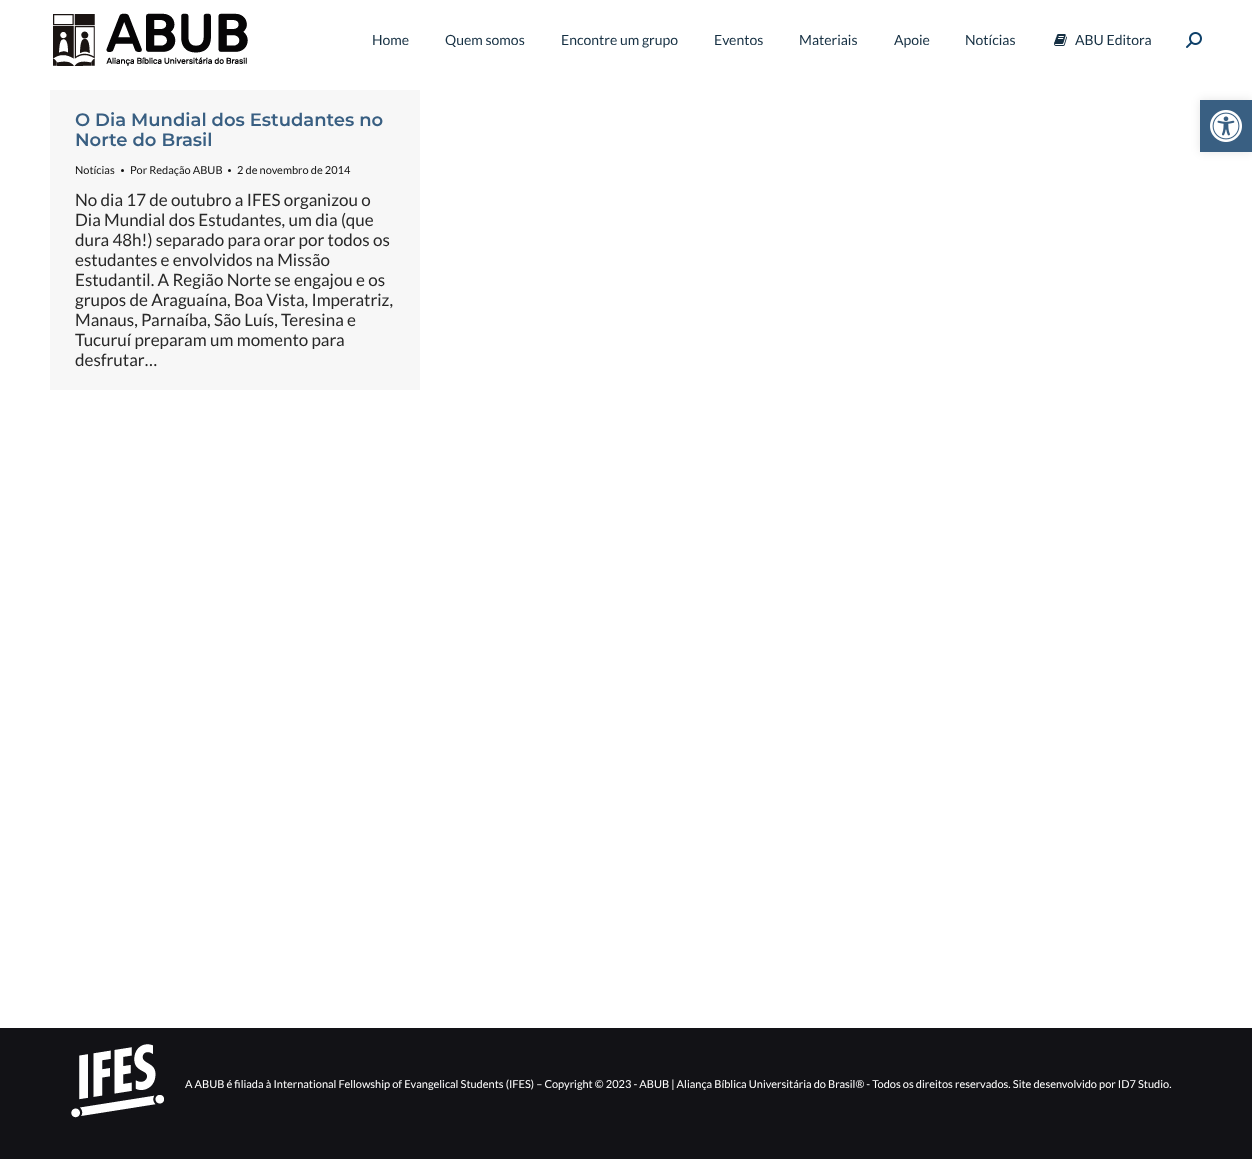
<svg xmlns="http://www.w3.org/2000/svg" width="1252" height="1159" viewBox="0 0 1252 1159">
  <defs>
    <filter id="blur1" x="-50%" y="-200%" width="200%" height="500%"><feGaussianBlur stdDeviation="5"/></filter>
  </defs>
  <rect width="100%" height="100%" fill="#121216"/>
  <rect x="0" y="0" width="1252" height="1028" fill="#ffffff"/>
  <image x="53" y="13" width="195" height="53" href="img1.png"/>
  <text x="372" y="45" font-family="Lato" font-size="14" fill="#163043">Home</text>
  <text x="445" y="45" font-family="Lato" font-size="14" fill="#163043">Quem somos</text>
  <text x="561" y="45" font-family="Lato" font-size="14" fill="#163043">Encontre um grupo</text>
  <text x="714" y="45" font-family="Lato" font-size="14" fill="#163043">Eventos</text>
  <text x="799" y="45" font-family="Lato" font-size="14" fill="#163043">Materiais</text>
  <text x="894" y="45" font-family="Lato" font-size="14" fill="#163043">Apoie</text>
  <text x="965" y="45" font-family="Lato" font-size="14" fill="#163043">Notícias</text>
  <image x="1054" y="34" width="13" height="12" href="img2.png"/>
  <text x="1075" y="45" font-family="Lato" font-size="14" fill="#163043">ABU Editora</text>
  <image x="1186" y="32" width="16" height="16" href="img3.png"/>
  <rect x="50" y="90" width="370" height="300" fill="#f7f7f7"/>
  <text x="75" y="126" font-family="Montserrat" font-size="18" font-weight="600" fill="#395f82">O Dia Mundial dos Estudantes no</text>
  <text x="75" y="146" font-family="Montserrat" font-size="18" font-weight="600" fill="#395f82">Norte do Brasil</text>
  <text x="75" y="174" font-family="Lato" font-size="11" fill="#111111">Notícias</text>
  <circle cx="122.5" cy="170.5" r="1.5" fill="#111111"/>
  <text x="130" y="174" font-family="Lato" font-size="11" fill="#111111">Por Redação ABUB</text>
  <circle cx="229.5" cy="170.5" r="1.5" fill="#111111"/>
  <text x="237" y="174" font-family="Lato" font-size="11" fill="#111111">2 de novembro de 2014</text>
  <text x="75" y="206" font-family="Lato" font-size="17" fill="#282828">No dia 17 de outubro a IFES organizou o</text>
  <text x="75" y="226" font-family="Lato" font-size="17" fill="#282828">Dia Mundial dos Estudantes, um dia (que</text>
  <text x="75" y="246" font-family="Lato" font-size="17" fill="#282828">dura 48h!) separado para orar por todos os</text>
  <text x="75" y="266" font-family="Lato" font-size="17" fill="#282828">estudantes e envolvidos na Missão</text>
  <text x="75" y="286" font-family="Lato" font-size="17" fill="#282828">Estudantil. A Região Norte se engajou e os</text>
  <text x="75" y="306" font-family="Lato" font-size="17" fill="#282828">grupos de Araguaína, Boa Vista, Imperatriz,</text>
  <text x="75" y="326" font-family="Lato" font-size="17" fill="#282828">Manaus, Parnaíba, São Luís, Teresina e</text>
  <text x="75" y="346" font-family="Lato" font-size="17" fill="#282828">Tucuruí preparam um momento para</text>
  <text x="75" y="366" font-family="Lato" font-size="17" fill="#282828">desfrutar…</text>
  <image x="71" y="1044" width="93" height="74" href="img4.png"/>
  <text x="185" y="1088" font-family="Lato" font-size="11" fill="#ffffff">A ABUB é filiada à International Fellowship of Evangelical Students (IFES) – Copyright © 2023 - ABUB | Aliança Bíblica Universitária do Brasil® - Todos os direitos reservados. Site desenvolvido por ID7 Studio.</text>
  <rect x="1200" y="100" width="52" height="52" fill="#000000" fill-opacity="0.1" filter="url(#blur1)"/>
  <rect x="1200" y="100" width="52" height="52" fill="#395f82"/>
  <image x="1210" y="110" width="32" height="32" href="img5.png"/>
</svg>
